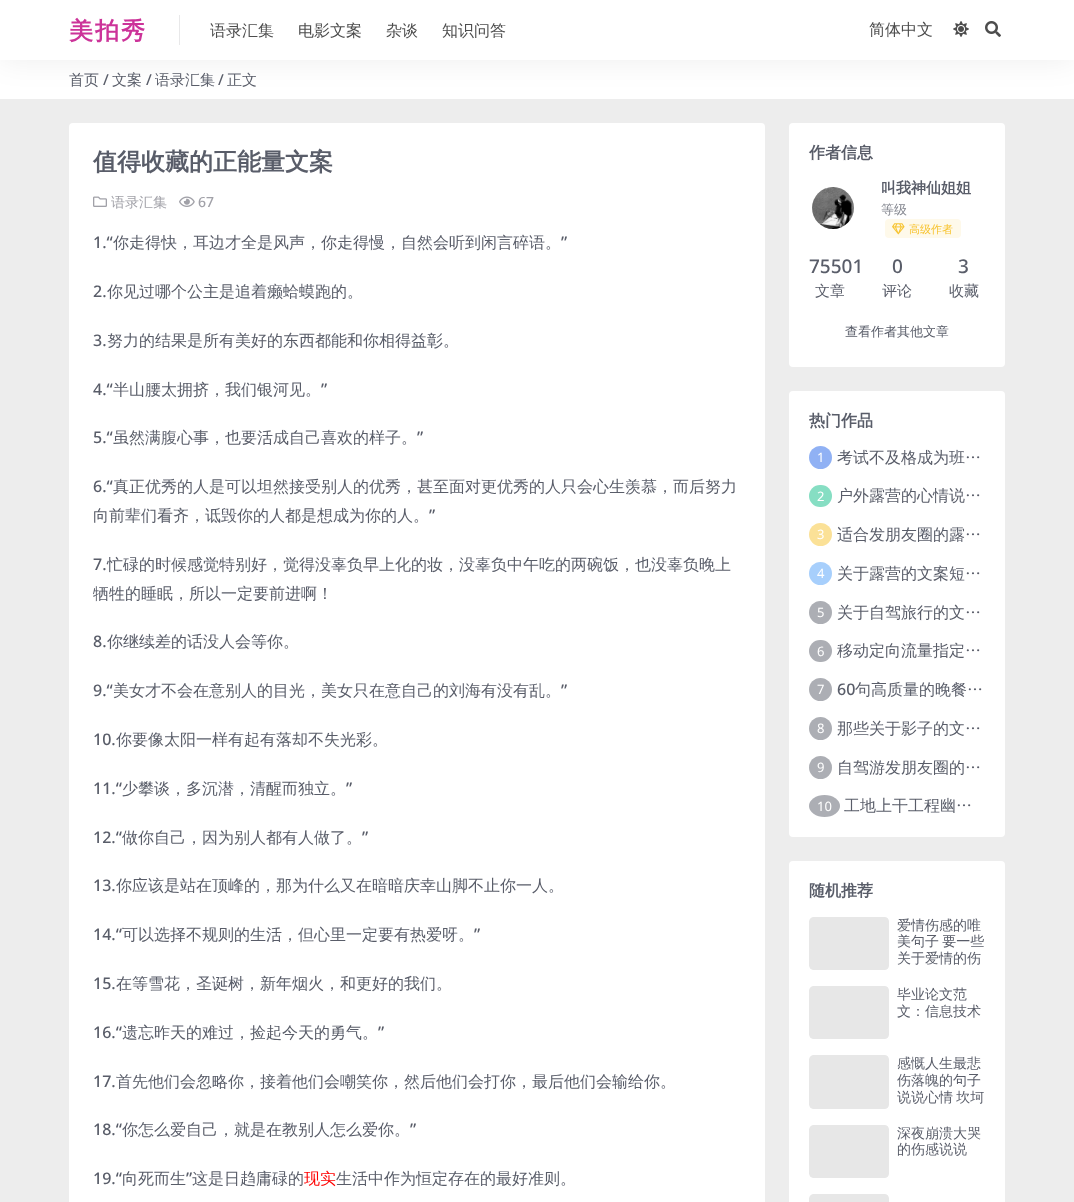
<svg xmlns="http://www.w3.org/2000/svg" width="1074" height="1202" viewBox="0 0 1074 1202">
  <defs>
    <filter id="blur1" x="-50%" y="-200%" width="200%" height="500%"><feGaussianBlur stdDeviation="15"/></filter>
    <clipPath id="clip1"><rect x="809" y="917" width="80" height="53" rx="4"/></clipPath>
    <clipPath id="clip2"><rect x="809" y="986" width="80" height="53" rx="4"/></clipPath>
    <clipPath id="clip3"><rect x="809" y="1055" width="80" height="54" rx="4"/></clipPath>
    <clipPath id="clip4"><rect x="809" y="1125" width="80" height="53" rx="4"/></clipPath>
    <clipPath id="clip5"><rect x="809" y="1194" width="80" height="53" rx="4"/></clipPath>
  </defs>
  <rect width="100%" height="100%" fill="#ededed"/>
  <rect x="0" y="60" width="1074" height="39" fill="#ffffff"/>
  <rect x="0" y="0" width="1074" height="60" fill="#000000" fill-opacity="0.07" filter="url(#blur1)"/>
  <rect x="0" y="0" width="1074" height="60" fill="#ffffff"/>
  <text x="69" y="39" font-family="WenQuanYi Zen Hei" font-size="24" font-weight="bold" letter-spacing="2" fill="#cc3399">美拍秀</text>
  <rect x="179" y="15" width="1" height="30" fill="#e8e8e9"/>
  <text x="210" y="36" font-family="WenQuanYi Zen Hei" font-size="16" font-weight="500" fill="#4d4d4d">语录汇集</text>
  <text x="298" y="36" font-family="WenQuanYi Zen Hei" font-size="16" font-weight="500" fill="#4d4d4d">电影文案</text>
  <text x="386" y="36" font-family="WenQuanYi Zen Hei" font-size="16" font-weight="500" fill="#4d4d4d">杂谈</text>
  <text x="442" y="36" font-family="WenQuanYi Zen Hei" font-size="16" font-weight="500" fill="#4d4d4d">知识问答</text>
  <text x="869" y="35" font-family="WenQuanYi Zen Hei" font-size="16" font-weight="500" fill="#4d4d4d">简体中文</text>
  <image x="953" y="21" width="16" height="16" href="img1.png"/>
  <image x="985" y="21" width="16" height="16" href="img2.png"/>
  <text x="69" y="85" font-family="WenQuanYi Zen Hei" font-size="15" font-weight="500" fill="#595d69">首页</text>
  <text x="103" y="85" font-family="Noto Sans" font-size="15" font-weight="500" fill="#595d69">/</text>
  <text x="112" y="85" font-family="WenQuanYi Zen Hei" font-size="15" font-weight="500" fill="#595d69">文案</text>
  <text x="146" y="85" font-family="Noto Sans" font-size="15" font-weight="500" fill="#595d69">/</text>
  <text x="155" y="85" font-family="WenQuanYi Zen Hei" font-size="15" font-weight="500" fill="#595d69">语录汇集</text>
  <text x="218" y="85" font-family="Noto Sans" font-size="15" font-weight="500" fill="#595d69">/</text>
  <text x="227" y="85" font-family="WenQuanYi Zen Hei" font-size="15" font-weight="500" fill="#595d69">正文</text>
  <rect x="69" y="123" width="696" height="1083" rx="4" fill="#ffffff"/>
  <text x="93" y="170" font-family="WenQuanYi Zen Hei" font-size="24" font-weight="bold" fill="#595d69">值得收藏的正能量文案</text>
  <image x="93" y="196" width="14" height="11" href="img3.png"/>
  <text x="111" y="207" font-family="WenQuanYi Zen Hei" font-size="14" font-weight="500" fill="#a1a1a8">语录汇集</text>
  <image x="179" y="196" width="16" height="11" href="img4.png"/>
  <text x="198" y="207" font-family="Noto Sans" font-size="14" font-weight="500" fill="#a1a1a8">67</text>
  <text x="93" y="248" font-family="Noto Sans" font-size="16" font-weight="500" fill="#595d69">1.“</text>
  <text x="113" y="248" font-family="WenQuanYi Zen Hei" font-size="16" font-weight="500" fill="#595d69">你走得快，耳边才全是风声，你走得慢，自然会听到闲言碎语。</text>
  <text x="561" y="248" font-family="Noto Sans" font-size="16" font-weight="500" fill="#595d69">”</text>
  <text x="93" y="297" font-family="Noto Sans" font-size="16" font-weight="500" fill="#595d69">2.</text>
  <text x="107" y="297" font-family="WenQuanYi Zen Hei" font-size="16" font-weight="500" fill="#595d69">你见过哪个公主是追着癞蛤蟆跑的。</text>
  <text x="93" y="346" font-family="Noto Sans" font-size="16" font-weight="500" fill="#595d69">3.</text>
  <text x="107" y="346" font-family="WenQuanYi Zen Hei" font-size="16" font-weight="500" fill="#595d69">努力的结果是所有美好的东西都能和你相得益彰。</text>
  <text x="93" y="395" font-family="Noto Sans" font-size="16" font-weight="500" fill="#595d69">4.“</text>
  <text x="113" y="395" font-family="WenQuanYi Zen Hei" font-size="16" font-weight="500" fill="#595d69">半山腰太拥挤，我们银河见。</text>
  <text x="321" y="395" font-family="Noto Sans" font-size="16" font-weight="500" fill="#595d69">”</text>
  <text x="93" y="443" font-family="Noto Sans" font-size="16" font-weight="500" fill="#595d69">5.“</text>
  <text x="113" y="443" font-family="WenQuanYi Zen Hei" font-size="16" font-weight="500" fill="#595d69">虽然满腹心事，也要活成自己喜欢的样子。</text>
  <text x="417" y="443" font-family="Noto Sans" font-size="16" font-weight="500" fill="#595d69">”</text>
  <text x="93" y="492" font-family="Noto Sans" font-size="16" font-weight="500" fill="#595d69">6.“</text>
  <text x="113" y="492" font-family="WenQuanYi Zen Hei" font-size="16" font-weight="500" fill="#595d69">真正优秀的人是可以坦然接受别人的优秀，甚至面对更优秀的人只会心生羡慕，而后努力</text>
  <text x="93" y="521" font-family="WenQuanYi Zen Hei" font-size="16" font-weight="500" fill="#595d69">向前辈们看齐，诋毁你的人都是想成为你的人。</text>
  <text x="429" y="521" font-family="Noto Sans" font-size="16" font-weight="500" fill="#595d69">”</text>
  <text x="93" y="570" font-family="Noto Sans" font-size="16" font-weight="500" fill="#595d69">7.</text>
  <text x="107" y="570" font-family="WenQuanYi Zen Hei" font-size="16" font-weight="500" fill="#595d69">忙碌的时候感觉特别好，觉得没辜负早上化的妆，没辜负中午吃的两碗饭，也没辜负晚上</text>
  <text x="93" y="599" font-family="WenQuanYi Zen Hei" font-size="16" font-weight="500" fill="#595d69">牺牲的睡眠，所以一定要前进啊！</text>
  <text x="93" y="647" font-family="Noto Sans" font-size="16" font-weight="500" fill="#595d69">8.</text>
  <text x="107" y="647" font-family="WenQuanYi Zen Hei" font-size="16" font-weight="500" fill="#595d69">你继续差的话没人会等你。</text>
  <text x="93" y="696" font-family="Noto Sans" font-size="16" font-weight="500" fill="#595d69">9.“</text>
  <text x="113" y="696" font-family="WenQuanYi Zen Hei" font-size="16" font-weight="500" fill="#595d69">美女才不会在意别人的目光，美女只在意自己的刘海有没有乱。</text>
  <text x="561" y="696" font-family="Noto Sans" font-size="16" font-weight="500" fill="#595d69">”</text>
  <text x="93" y="745" font-family="Noto Sans" font-size="16" font-weight="500" fill="#595d69">10.</text>
  <text x="116" y="745" font-family="WenQuanYi Zen Hei" font-size="16" font-weight="500" fill="#595d69">你要像太阳一样有起有落却不失光彩。</text>
  <text x="93" y="794" font-family="Noto Sans" font-size="16" font-weight="500" fill="#595d69">11.“</text>
  <text x="122" y="794" font-family="WenQuanYi Zen Hei" font-size="16" font-weight="500" fill="#595d69">少攀谈，多沉潜，清醒而独立。</text>
  <text x="346" y="794" font-family="Noto Sans" font-size="16" font-weight="500" fill="#595d69">”</text>
  <text x="93" y="843" font-family="Noto Sans" font-size="16" font-weight="500" fill="#595d69">12.“</text>
  <text x="122" y="843" font-family="WenQuanYi Zen Hei" font-size="16" font-weight="500" fill="#595d69">做你自己，因为别人都有人做了。</text>
  <text x="362" y="843" font-family="Noto Sans" font-size="16" font-weight="500" fill="#595d69">”</text>
  <text x="93" y="891" font-family="Noto Sans" font-size="16" font-weight="500" fill="#595d69">13.</text>
  <text x="116" y="891" font-family="WenQuanYi Zen Hei" font-size="16" font-weight="500" fill="#595d69">你应该是站在顶峰的，那为什么又在暗暗庆幸山脚不止你一人。</text>
  <text x="93" y="940" font-family="Noto Sans" font-size="16" font-weight="500" fill="#595d69">14.“</text>
  <text x="122" y="940" font-family="WenQuanYi Zen Hei" font-size="16" font-weight="500" fill="#595d69">可以选择不规则的生活，但心里一定要有热爱呀。</text>
  <text x="474" y="940" font-family="Noto Sans" font-size="16" font-weight="500" fill="#595d69">”</text>
  <text x="93" y="989" font-family="Noto Sans" font-size="16" font-weight="500" fill="#595d69">15.</text>
  <text x="116" y="989" font-family="WenQuanYi Zen Hei" font-size="16" font-weight="500" fill="#595d69">在等雪花，圣诞树，新年烟火，和更好的我们。</text>
  <text x="93" y="1038" font-family="Noto Sans" font-size="16" font-weight="500" fill="#595d69">16.“</text>
  <text x="122" y="1038" font-family="WenQuanYi Zen Hei" font-size="16" font-weight="500" fill="#595d69">遗忘昨天的难过，捡起今天的勇气。</text>
  <text x="378" y="1038" font-family="Noto Sans" font-size="16" font-weight="500" fill="#595d69">”</text>
  <text x="93" y="1087" font-family="Noto Sans" font-size="16" font-weight="500" fill="#595d69">17.</text>
  <text x="116" y="1087" font-family="WenQuanYi Zen Hei" font-size="16" font-weight="500" fill="#595d69">首先他们会忽略你，接着他们会嘲笑你，然后他们会打你，最后他们会输给你。</text>
  <text x="93" y="1135" font-family="Noto Sans" font-size="16" font-weight="500" fill="#595d69">18.“</text>
  <text x="122" y="1135" font-family="WenQuanYi Zen Hei" font-size="16" font-weight="500" fill="#595d69">你怎么爱自己，就是在教别人怎么爱你。</text>
  <text x="410" y="1135" font-family="Noto Sans" font-size="16" font-weight="500" fill="#595d69">”</text>
  <text x="93" y="1184" font-family="Noto Sans" font-size="16" font-weight="500" fill="#595d69">19.“</text>
  <text x="122" y="1184" font-family="WenQuanYi Zen Hei" font-size="16" font-weight="500" fill="#595d69">向死而生</text>
  <text x="186" y="1184" font-family="Noto Sans" font-size="16" font-weight="500" fill="#595d69">”</text>
  <text x="192" y="1184" font-family="WenQuanYi Zen Hei" font-size="16" font-weight="500" fill="#595d69">这是日趋庸碌的</text>
  <text x="304" y="1184" font-family="WenQuanYi Zen Hei" font-size="16" font-weight="500" fill="#ff0000">现实</text>
  <text x="336" y="1184" font-family="WenQuanYi Zen Hei" font-size="16" font-weight="500" fill="#595d69">生活中作为恒定存在的最好准则。</text>
  <rect x="789" y="123" width="216" height="244" rx="4" fill="#ffffff"/>
  <text x="809" y="158" font-family="WenQuanYi Zen Hei" font-size="16" font-weight="bold" fill="#595d69">作者信息</text>
  <image x="812" y="187" width="42" height="42" href="img5.png"/>
  <text x="881" y="193" font-family="WenQuanYi Zen Hei" font-size="15" font-weight="bold" fill="#595d69">叫我神仙姐姐</text>
  <text x="881" y="214" font-family="WenQuanYi Zen Hei" font-size="13" font-weight="500" fill="#83868f">等级</text>
  <rect x="885" y="219" width="76" height="19" rx="4" fill="#fef9ea"/>
  <image x="892" y="223" width="13" height="12" href="img6.png"/>
  <text x="909" y="233" font-family="WenQuanYi Zen Hei" font-size="11" font-weight="500" fill="#f7c32e">高级作者</text>
  <text x="809" y="273" font-family="Noto Sans" font-size="19" font-weight="500" fill="#595d69">75501</text>
  <text x="815" y="296" font-family="WenQuanYi Zen Hei" font-size="15" font-weight="500" fill="#595d69">文章</text>
  <text x="892" y="273" font-family="Noto Sans" font-size="19" font-weight="500" fill="#595d69">0</text>
  <text x="882" y="296" font-family="WenQuanYi Zen Hei" font-size="15" font-weight="500" fill="#595d69">评论</text>
  <text x="958" y="273" font-family="Noto Sans" font-size="19" font-weight="500" fill="#595d69">3</text>
  <text x="949" y="296" font-family="WenQuanYi Zen Hei" font-size="15" font-weight="500" fill="#595d69">收藏</text>
  <text x="845" y="336" font-family="WenQuanYi Zen Hei" font-size="13" font-weight="500" fill="#595d69">查看作者其他文章</text>
  <rect x="789" y="391" width="216" height="446" rx="4" fill="#ffffff"/>
  <text x="809" y="426" font-family="WenQuanYi Zen Hei" font-size="16" font-weight="bold" fill="#595d69">热门作品</text>
  <circle cx="820.5" cy="457.5" r="11.5" fill="#90b1f4"/>
  <text x="817" y="462" font-family="Noto Sans" font-size="13" fill="#ffffff">1</text>
  <text x="837" y="463" font-family="WenQuanYi Zen Hei" font-size="16" font-weight="500" fill="#595d69">考试不及格成为班…</text>
  <rect x="809" y="485" width="23" height="22" rx="11" fill="#86dec3"/>
  <text x="817" y="501" font-family="Noto Sans" font-size="13" fill="#ffffff">2</text>
  <text x="837" y="501" font-family="WenQuanYi Zen Hei" font-size="16" font-weight="500" fill="#595d69">户外露营的心情说…</text>
  <circle cx="820.5" cy="534.5" r="11.5" fill="#fbe197"/>
  <text x="817" y="539" font-family="Noto Sans" font-size="13" fill="#ffffff">3</text>
  <text x="837" y="540" font-family="WenQuanYi Zen Hei" font-size="16" font-weight="500" fill="#595d69">适合发朋友圈的露…</text>
  <circle cx="820.5" cy="573.5" r="11.5" fill="#a7cffc"/>
  <text x="817" y="578" font-family="Noto Sans" font-size="13" fill="#ffffff">4</text>
  <text x="837" y="579" font-family="WenQuanYi Zen Hei" font-size="16" font-weight="500" fill="#595d69">关于露营的文案短…</text>
  <circle cx="820.5" cy="612.5" r="11.5" fill="#acaeb4"/>
  <text x="817" y="617" font-family="Noto Sans" font-size="13" fill="#ffffff">5</text>
  <text x="837" y="618" font-family="WenQuanYi Zen Hei" font-size="16" font-weight="500" fill="#595d69">关于自驾旅行的文…</text>
  <rect x="809" y="640" width="23" height="22" rx="11" fill="#acaeb4"/>
  <text x="817" y="656" font-family="Noto Sans" font-size="13" fill="#ffffff">6</text>
  <text x="837" y="656" font-family="WenQuanYi Zen Hei" font-size="16" font-weight="500" fill="#595d69">移动定向流量指定…</text>
  <circle cx="820.5" cy="689.5" r="11.5" fill="#acaeb4"/>
  <text x="817" y="694" font-family="Noto Sans" font-size="13" fill="#ffffff">7</text>
  <text x="837" y="695" font-family="Noto Sans" font-size="16" font-weight="500" fill="#595d69">60</text>
  <text x="855" y="695" font-family="WenQuanYi Zen Hei" font-size="16" font-weight="500" fill="#595d69">句高质量的晚餐…</text>
  <circle cx="820.5" cy="728.5" r="11.5" fill="#acaeb4"/>
  <text x="817" y="733" font-family="Noto Sans" font-size="13" fill="#ffffff">8</text>
  <text x="837" y="734" font-family="WenQuanYi Zen Hei" font-size="16" font-weight="500" fill="#595d69">那些关于影子的文…</text>
  <circle cx="820.5" cy="767.5" r="11.5" fill="#acaeb4"/>
  <text x="817" y="772" font-family="Noto Sans" font-size="13" fill="#ffffff">9</text>
  <text x="837" y="773" font-family="WenQuanYi Zen Hei" font-size="16" font-weight="500" fill="#595d69">自驾游发朋友圈的…</text>
  <ellipse cx="824.5" cy="806" rx="15.5" ry="11" fill="#acaeb4"/>
  <text x="817" y="811" font-family="Noto Sans" font-size="13" fill="#ffffff">10</text>
  <text x="844" y="811" font-family="WenQuanYi Zen Hei" font-size="16" font-weight="500" fill="#595d69">工地上干工程幽…</text>
  <rect x="789" y="861" width="216" height="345" rx="4" fill="#ffffff"/>
  <text x="809" y="896" font-family="WenQuanYi Zen Hei" font-size="16" font-weight="bold" fill="#595d69">随机推荐</text>
  <g clip-path="url(#clip1)">
    <path d="M814 917H885C887 917 889 919 889 921V966C889 968 887 970 885 970H814C811 970 809 968 809 965V922C809 919 811 917 814 917Z" fill="#e7e7e7"/>
  </g>
  <text x="897" y="930" font-family="WenQuanYi Zen Hei" font-size="14" font-weight="500" fill="#595d69">爱情伤感的唯</text>
  <text x="897" y="946" word-spacing="-1" font-family="WenQuanYi Zen Hei" font-size="14" font-weight="500" fill="#595d69">美句子 要一些</text>
  <text x="897" y="963" font-family="WenQuanYi Zen Hei" font-size="14" font-weight="500" fill="#595d69">关于爱情的伤</text>
  <g clip-path="url(#clip2)">
    <path d="M814 986H885C887 986 889 988 889 990V1035C889 1037 887 1039 885 1039H814C811 1039 809 1037 809 1034V991C809 988 811 986 814 986Z" fill="#e7e7e7"/>
  </g>
  <text x="897" y="999" font-family="WenQuanYi Zen Hei" font-size="14" font-weight="500" fill="#595d69">毕业论文范</text>
  <text x="897" y="1016" font-family="WenQuanYi Zen Hei" font-size="14" font-weight="500" fill="#595d69">文：信息技术</text>
  <g clip-path="url(#clip3)">
    <path d="M814 1055H885C887 1055 889 1057 889 1059V1105C889 1107 887 1109 885 1109H814C811 1109 809 1107 809 1104V1060C809 1057 811 1055 814 1055Z" fill="#e7e7e7"/>
  </g>
  <text x="897" y="1068" font-family="WenQuanYi Zen Hei" font-size="14" font-weight="500" fill="#595d69">感慨人生最悲</text>
  <text x="897" y="1085" font-family="WenQuanYi Zen Hei" font-size="14" font-weight="500" fill="#595d69">伤落魄的句子</text>
  <text x="897" y="1102" word-spacing="-1" font-family="WenQuanYi Zen Hei" font-size="14" font-weight="500" fill="#595d69">说说心情 坎坷</text>
  <g clip-path="url(#clip4)">
    <path d="M814 1125H885C887 1125 889 1127 889 1129V1174C889 1176 887 1178 885 1178H814C811 1178 809 1176 809 1173V1130C809 1127 811 1125 814 1125Z" fill="#e7e7e7"/>
  </g>
  <text x="897" y="1138" font-family="WenQuanYi Zen Hei" font-size="14" font-weight="500" fill="#595d69">深夜崩溃大哭</text>
  <text x="897" y="1154" font-family="WenQuanYi Zen Hei" font-size="14" font-weight="500" fill="#595d69">的伤感说说</text>
  <g clip-path="url(#clip5)">
    <path d="M814 1194H885C887 1194 889 1196 889 1198V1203C889 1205 887 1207 885 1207H814C811 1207 809 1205 809 1202V1199C809 1196 811 1194 814 1194Z" fill="#e7e7e7"/>
  </g>
</svg>
